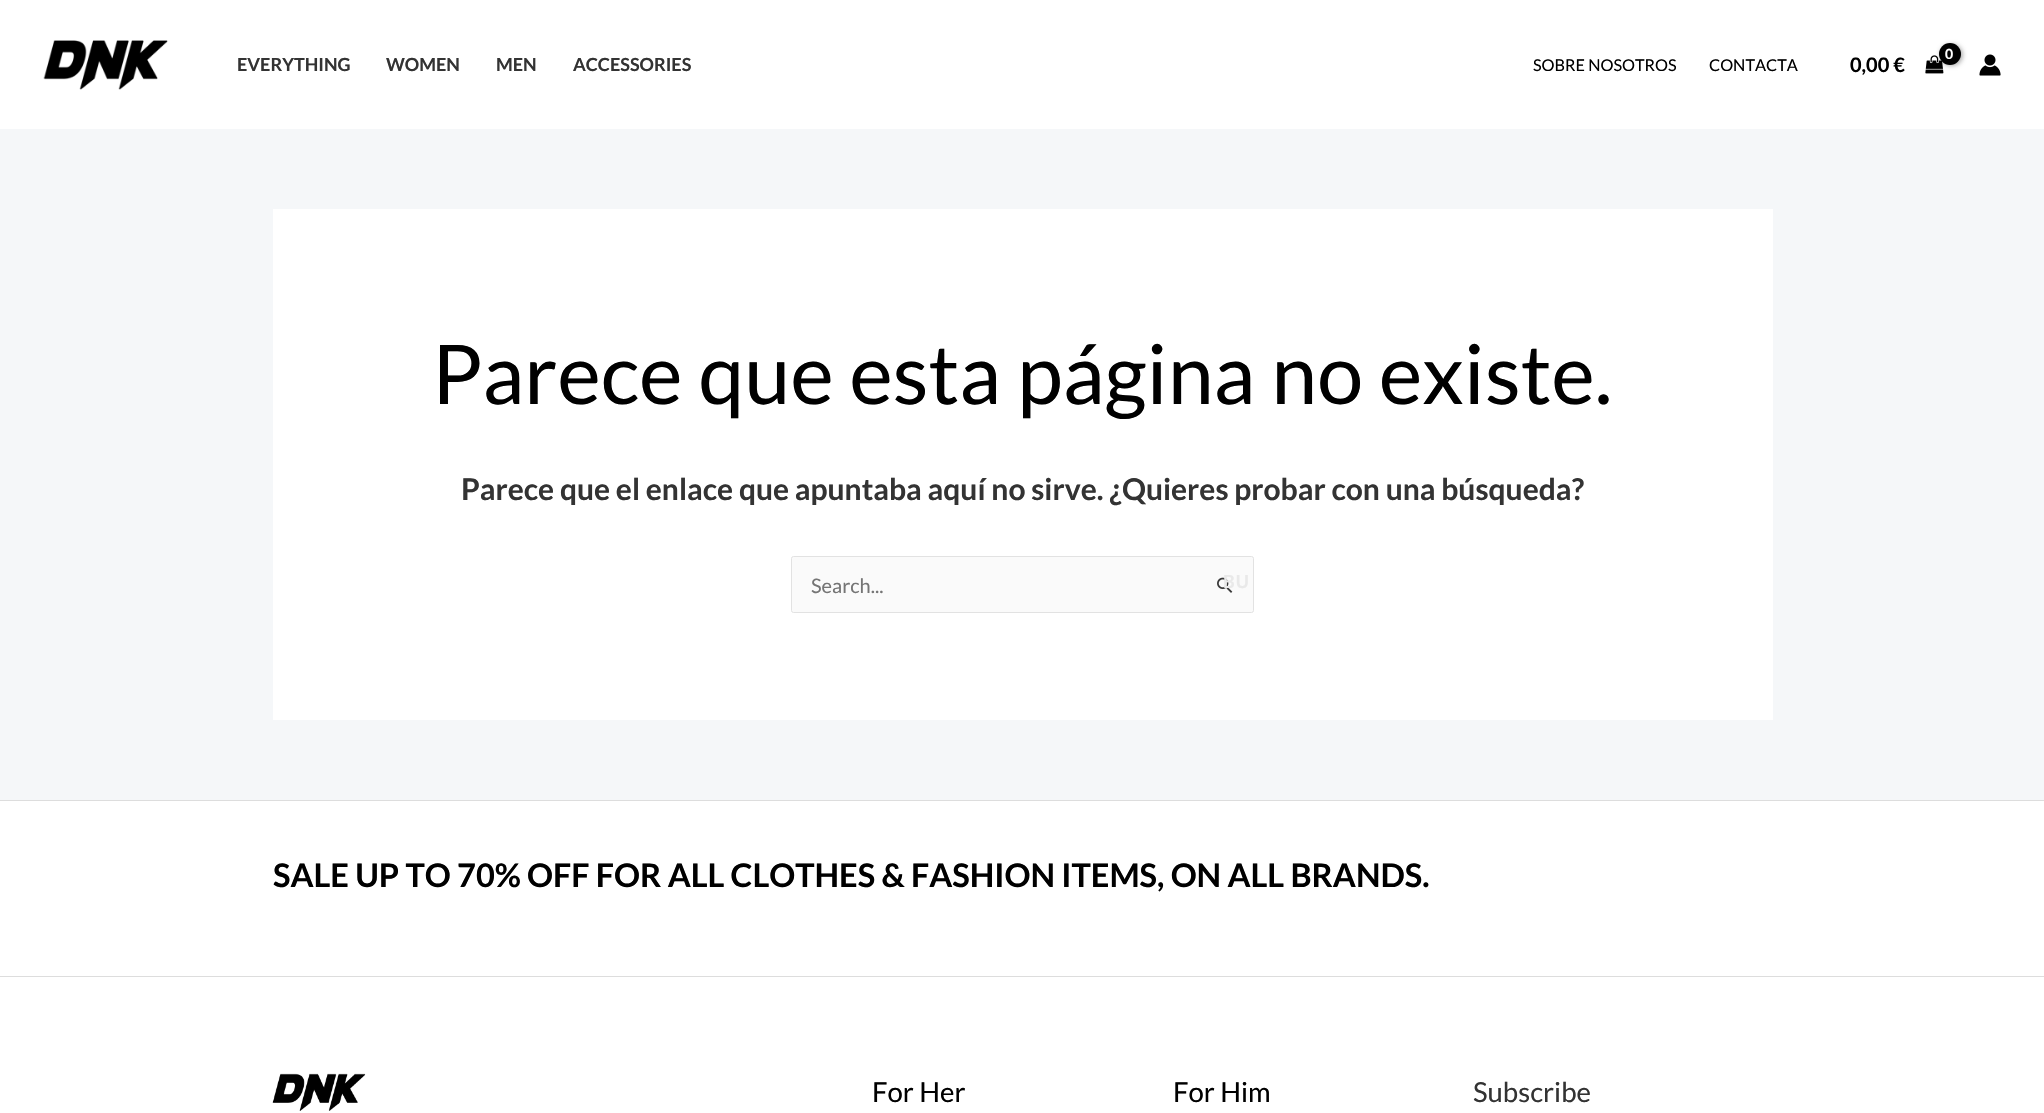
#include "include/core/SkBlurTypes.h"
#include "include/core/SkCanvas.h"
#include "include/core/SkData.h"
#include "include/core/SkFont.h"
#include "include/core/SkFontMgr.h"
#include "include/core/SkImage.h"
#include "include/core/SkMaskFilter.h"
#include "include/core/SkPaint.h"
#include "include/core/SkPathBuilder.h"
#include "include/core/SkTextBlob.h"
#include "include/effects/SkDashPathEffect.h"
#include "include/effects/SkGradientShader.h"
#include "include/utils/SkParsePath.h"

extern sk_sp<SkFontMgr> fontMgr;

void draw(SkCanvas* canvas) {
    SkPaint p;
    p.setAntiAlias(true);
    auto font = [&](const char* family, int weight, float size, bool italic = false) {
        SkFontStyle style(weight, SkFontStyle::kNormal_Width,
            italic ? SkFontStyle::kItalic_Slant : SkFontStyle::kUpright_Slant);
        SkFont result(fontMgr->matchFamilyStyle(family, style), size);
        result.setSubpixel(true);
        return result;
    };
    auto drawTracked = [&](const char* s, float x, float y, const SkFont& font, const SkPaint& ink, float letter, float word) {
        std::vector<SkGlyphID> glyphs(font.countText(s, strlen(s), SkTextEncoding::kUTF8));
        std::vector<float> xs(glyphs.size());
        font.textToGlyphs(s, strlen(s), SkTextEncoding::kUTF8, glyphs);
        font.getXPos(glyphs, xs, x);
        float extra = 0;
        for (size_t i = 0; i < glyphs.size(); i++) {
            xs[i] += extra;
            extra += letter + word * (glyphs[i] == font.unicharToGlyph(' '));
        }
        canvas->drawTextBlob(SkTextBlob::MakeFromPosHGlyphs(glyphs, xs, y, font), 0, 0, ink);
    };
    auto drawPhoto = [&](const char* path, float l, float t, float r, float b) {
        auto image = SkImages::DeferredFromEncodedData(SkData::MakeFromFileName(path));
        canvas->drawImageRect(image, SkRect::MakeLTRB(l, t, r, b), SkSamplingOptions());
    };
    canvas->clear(0xFFF5F7F9);
    p.setColor(0xFFFFFFFF);
    canvas->drawRect(SkRect::MakeLTRB(0, 0, 2044, 129), p);
    drawPhoto("media/1.png", 43, 40, 168, 90);
    auto font1 = font("Lato", 700, 18);
    p.setColor(0xFF333333);
    {
        const struct { const char* s; float x, y; } items[] = {
            {"EVERYTHING", 237, 71},
            {"WOMEN", 386, 71},
            {"MEN", 496, 71},
            {"ACCESSORIES", 573, 71},
        };
        for (auto [s, x, y] : items) {
            canvas->drawString(s, x, y, font1, p);
        }
    }
    auto font2 = font("Lato", 400, 16.25f);
    p.setColor(0xFF000000);
    canvas->drawString("SOBRE NOSOTROS", 1533, 71, font2, p);
    canvas->drawString("CONTACTA", 1709, 71, font2, p);
    drawPhoto("media/2.png", 1925, 55, 1944, 74);
    p.setColor(0x4D000000);
    p.setMaskFilter(SkMaskFilter::MakeBlur(kNormal_SkBlurStyle, 2));
    canvas->drawRoundRect(SkRect::MakeLTRB(1940, 44, 1963, 66), 11, 11, p);
    p.setMaskFilter(nullptr);
    p.setColor(0xFF000000);
    canvas->drawCircle(1950, 54, 11, p);
    auto font3 = font("Lato", 700, 14);
    p.setColor(0xFFFFFFFF);
    drawTracked("0", 1945, 59, font3, p, -1, 0);
    auto font4 = font("Lato", 700, 20);
    p.setColor(0xFF000000);
    canvas->drawString("0,00 €", 1850, 72, font4, p);
    drawPhoto("media/3.png", 1979, 54, 2001, 76);
    p.setColor(0xFFFFFFFF);
    canvas->drawRect(SkRect::MakeLTRB(273, 209, 1773, 720), p);
    auto font5 = font("Lato", 400, 82.5f);
    p.setColor(0xFF000000);
    canvas->drawString("Parece que esta página no existe.", 432, 404, font5, p);
    auto font6 = font("Lato", 700, 30);
    p.setColor(0xFF333333);
    canvas->drawString("Parece que el enlace que apuntaba aquí no sirve. ¿Quieres probar con una búsqueda?", 461, 500, font6, p);
    p.setColor(0xFFFAFAFA);
    canvas->drawRoundRect(SkRect::MakeLTRB(791.5f, 556.5f, 1253.5f, 612.5f), 2, 2, p);
    p.setStyle(SkPaint::kStroke_Style);
    p.setStrokeWidth(1);
    p.setColor(0xFFE2E2E2);
    canvas->drawRoundRect(SkRect::MakeLTRB(791.5f, 556.5f, 1253.5f, 612.5f), 2, 2, p);
    auto font7 = font("Lato", 400, 20);
    p.setStyle(SkPaint::kFill_Style);
    p.setColor(0xFF757575);
    canvas->drawString("Search...", 811, 593, font7, p);
    drawPhoto("media/4.png", 1217, 577, 1233, 593);
    p.setColor(0xFFE9E9E9);
    drawTracked("BU", 1223, 588, font1, p, 1, 0);
    p.setColor(0xFFFFFFFF);
    canvas->drawRect(SkRect::MakeLTRB(0, 801, 2044, 1113), p);
    p.setColor(0xFFDDDDDD);
    canvas->drawRect(SkRect::MakeLTRB(0, 800, 2044, 801), p);
    auto font8 = font("Lato", 700, 32.5f);
    p.setColor(0xFF000000);
    canvas->drawString("SALE UP TO 70% OFF FOR ALL CLOTHES & FASHION ITEMS, ON ALL BRANDS.", 273, 887, font8, p);
    p.setColor(0xFFDDDDDD);
    canvas->drawRect(SkRect::MakeLTRB(0, 976, 2044, 977), p);
    drawPhoto("media/5.png", 272, 1073, 366, 1111);
    auto font9 = font("Lato", 400, 27.5f);
    p.setColor(0xFF000000);
    canvas->drawString("For Her", 872, 1102, font9, p);
    canvas->drawString("For Him", 1173, 1102, font9, p);
    p.setColor(0xFF333333);
    canvas->drawString("Subscribe", 1473, 1102, font9, p);
}
